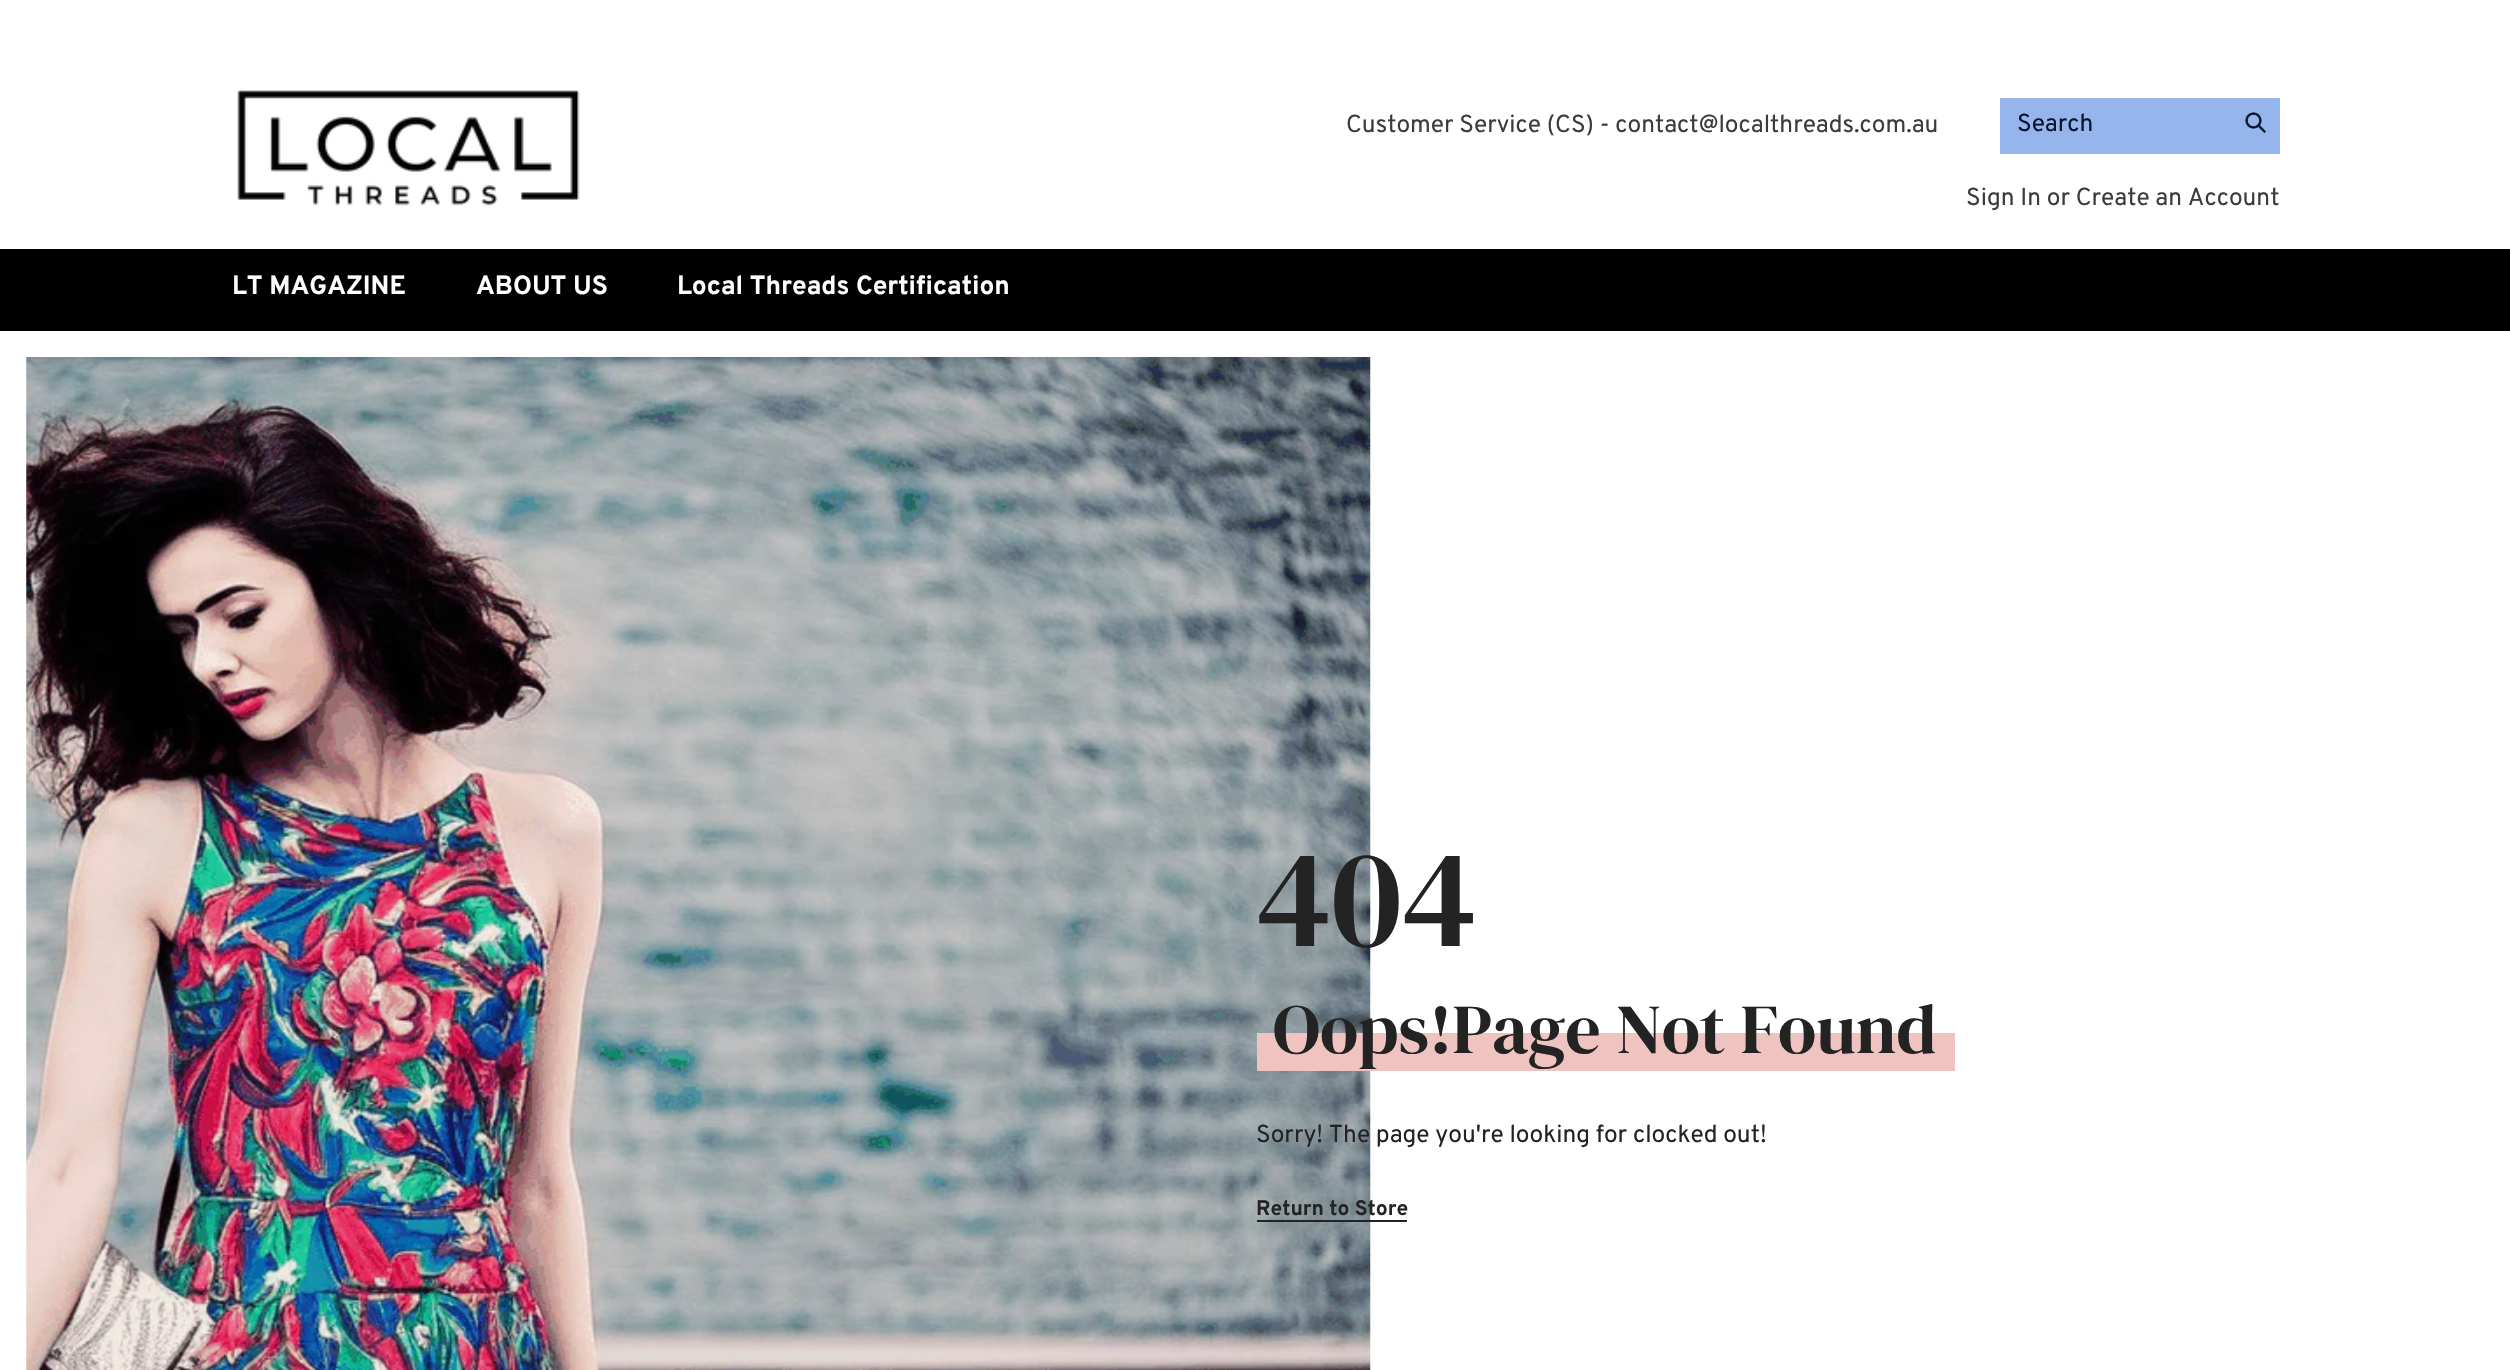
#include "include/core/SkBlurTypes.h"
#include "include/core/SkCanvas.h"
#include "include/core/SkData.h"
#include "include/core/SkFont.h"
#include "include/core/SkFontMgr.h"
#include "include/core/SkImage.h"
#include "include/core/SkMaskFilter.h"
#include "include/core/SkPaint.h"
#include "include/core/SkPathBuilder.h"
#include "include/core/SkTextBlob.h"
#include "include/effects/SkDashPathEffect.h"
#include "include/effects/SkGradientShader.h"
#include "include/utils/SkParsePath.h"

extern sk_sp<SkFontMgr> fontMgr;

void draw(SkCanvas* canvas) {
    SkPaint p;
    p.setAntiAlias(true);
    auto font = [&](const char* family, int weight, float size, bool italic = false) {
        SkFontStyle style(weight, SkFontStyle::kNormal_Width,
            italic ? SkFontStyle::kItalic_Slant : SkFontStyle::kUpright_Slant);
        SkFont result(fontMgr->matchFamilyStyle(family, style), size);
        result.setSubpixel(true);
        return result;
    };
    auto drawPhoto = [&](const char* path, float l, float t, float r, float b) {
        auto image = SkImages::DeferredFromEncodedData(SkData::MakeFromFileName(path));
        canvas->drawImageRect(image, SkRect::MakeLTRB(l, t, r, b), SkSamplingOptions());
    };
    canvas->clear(0xFFFFFFFF);
    drawPhoto("media/1.png", 237, 90, 580, 206);
    auto font1 = font("Overpass", 400, 24.5f);
    p.setColor(0xFF3C3C3C);
    canvas->drawString("Customer Service (CS) - contact@localthreads.com.au", 1346, 132, font1, p);
    p.setColor(0xFF96B5EC);
    canvas->drawRect(SkRect::MakeLTRB(2000, 98, 2280, 154), p);
    p.setColor(0xFF06142E);
    canvas->drawString("Search", 2017, 131, font1, p);
    drawPhoto("media/2.png", 2245, 112, 2266, 133);
    p.setColor(0xFF3C3C3C);
    canvas->drawString("Sign In or Create an Account", 1966, 205, font1, p);
    p.setColor(0xFF000000);
    canvas->drawRect(SkRect::MakeLTRB(0, 249, 2510, 331), p);
    auto font2 = font("Overpass", 700, 26.25f);
    p.setColor(0xFFFFFFFF);
    {
        const struct { const char* s; float x, y; } items[] = {
            {"LT MAGAZINE", 232, 294},
            {"ABOUT US", 476, 294},
            {"Local Threads Certification", 677, 294},
        };
        for (auto [s, x, y] : items) {
            canvas->drawString(s, x, y, font2, p);
        }
    }
    drawPhoto("media/3.png", 26, 357, 1371, 1370);
    auto font3 = font("DM Serif Display", 400, 140);
    p.setColor(0xFF232323);
    canvas->drawString("404", 1256, 946, font3, p);
    p.setColor(0xFFEFC3C0);
    canvas->drawRect(SkRect::MakeLTRB(1257, 1033, 1955, 1071), p);
    auto font4 = font("DM Serif Display", 400, 70);
    p.setColor(0xFF232323);
    canvas->drawString("Oops!Page Not Found", 1273, 1053, font4, p);
    canvas->drawString("Sorry! The page you're looking for clocked out!", 1256, 1142, font1, p);
    auto font5 = font("Overpass", 700, 21);
    canvas->drawString("Return to Store", 1256, 1215, font5, p);
    canvas->drawRect(SkRect::MakeLTRB(1257, 1220, 1407, 1222), p);
}
